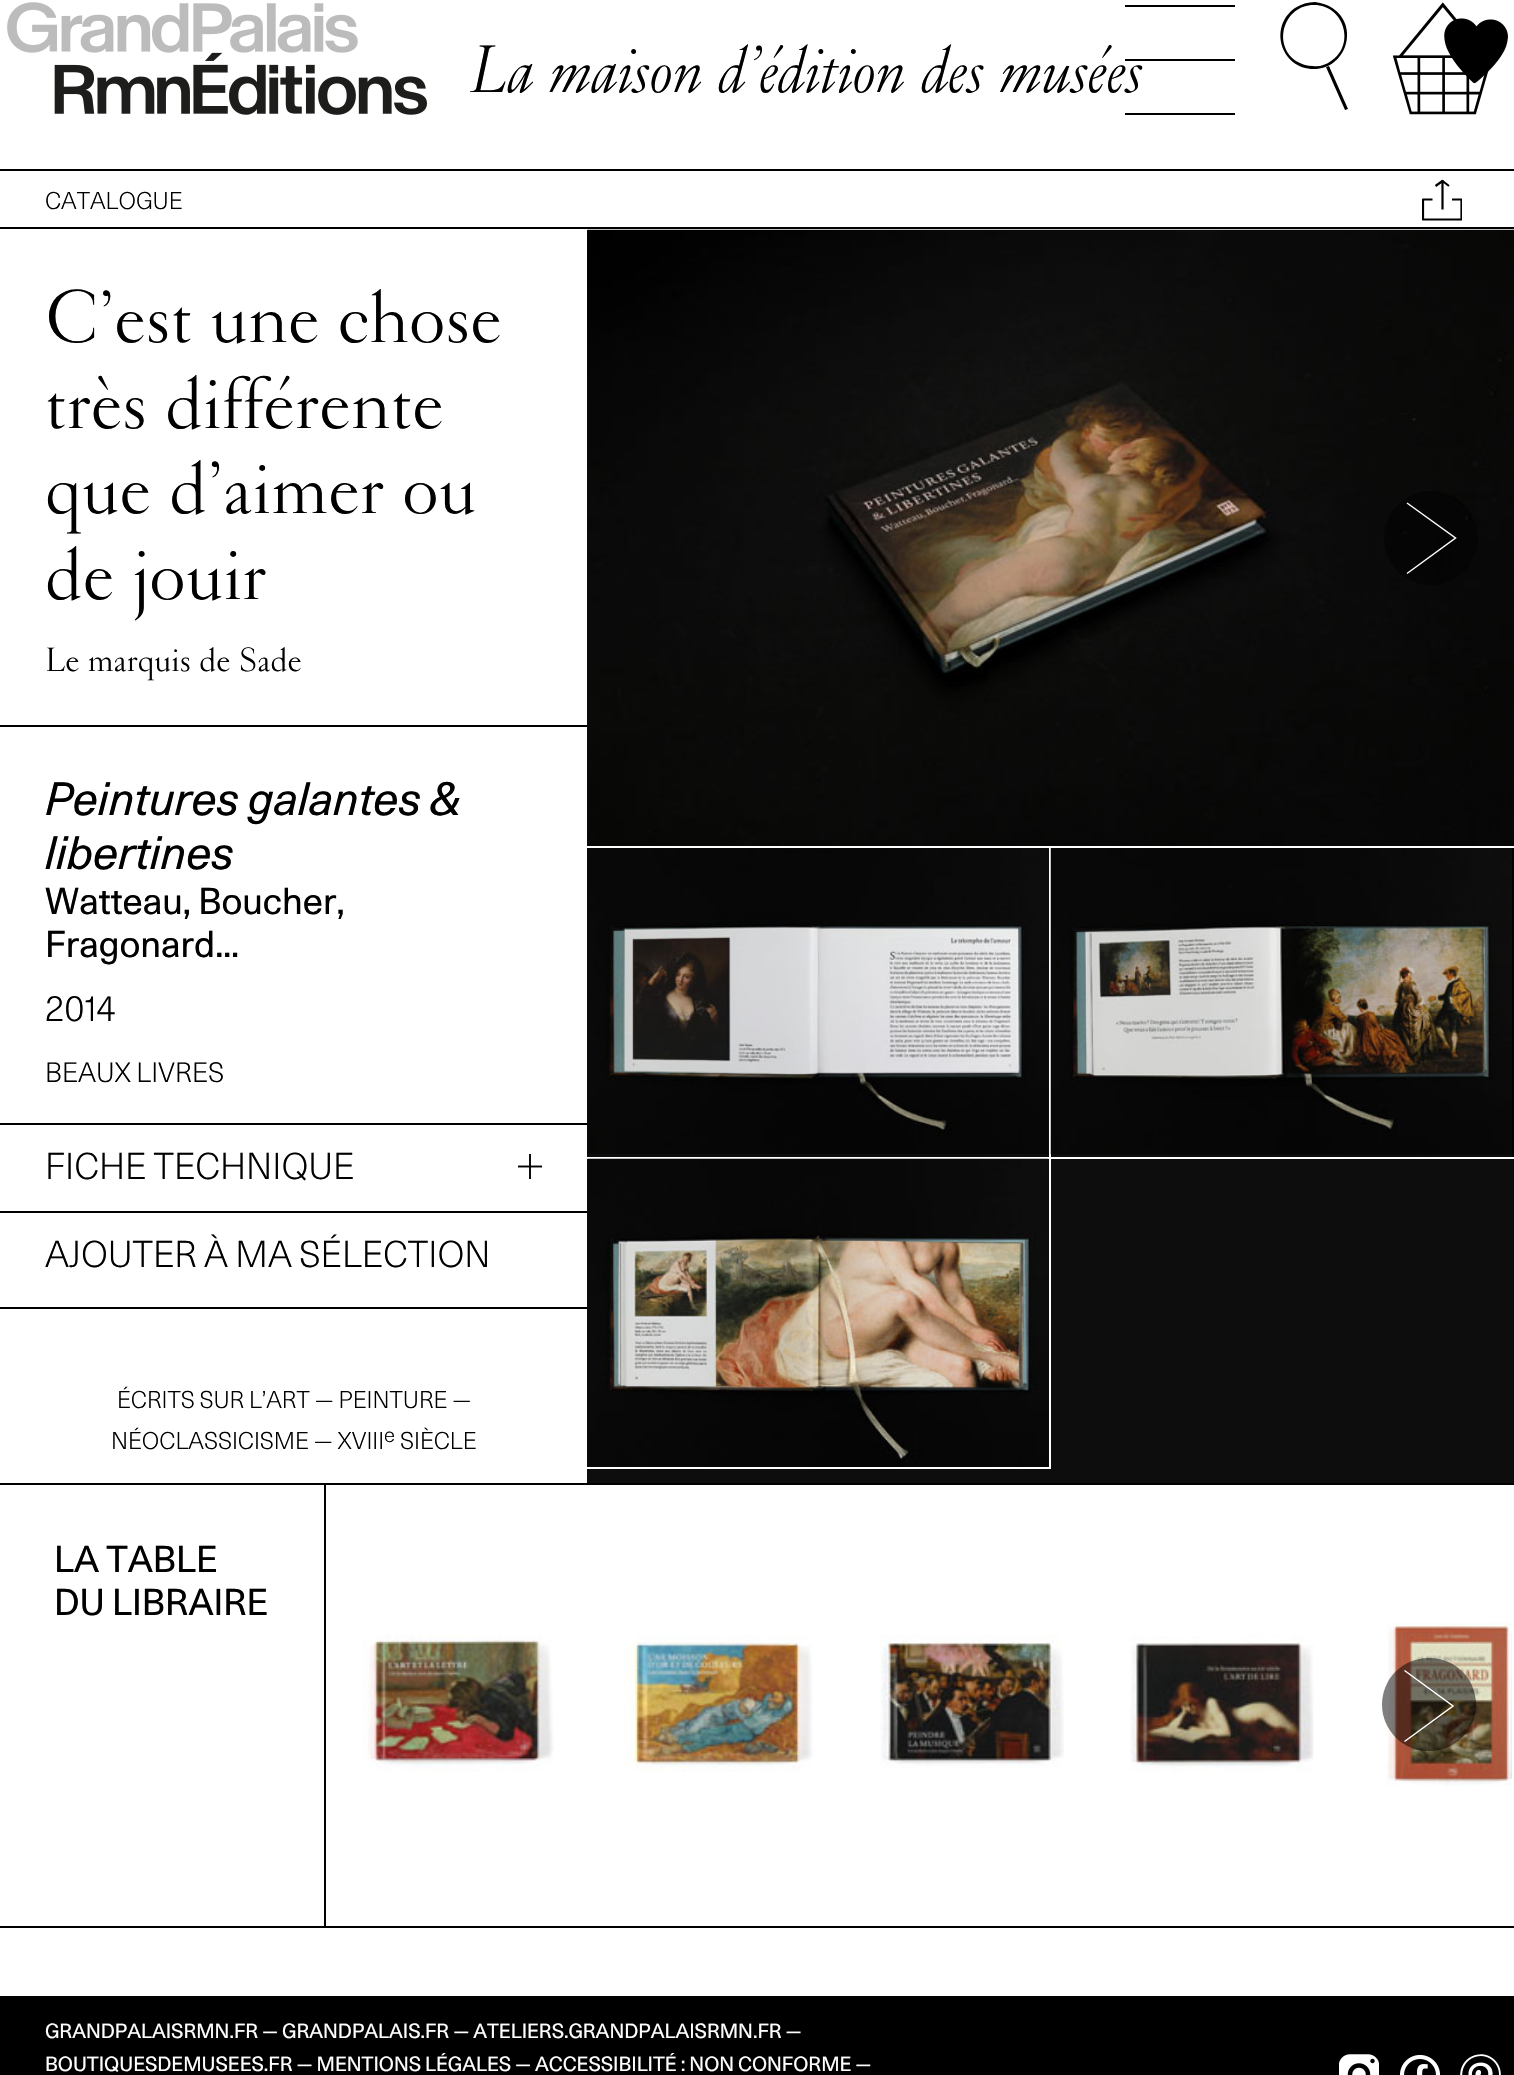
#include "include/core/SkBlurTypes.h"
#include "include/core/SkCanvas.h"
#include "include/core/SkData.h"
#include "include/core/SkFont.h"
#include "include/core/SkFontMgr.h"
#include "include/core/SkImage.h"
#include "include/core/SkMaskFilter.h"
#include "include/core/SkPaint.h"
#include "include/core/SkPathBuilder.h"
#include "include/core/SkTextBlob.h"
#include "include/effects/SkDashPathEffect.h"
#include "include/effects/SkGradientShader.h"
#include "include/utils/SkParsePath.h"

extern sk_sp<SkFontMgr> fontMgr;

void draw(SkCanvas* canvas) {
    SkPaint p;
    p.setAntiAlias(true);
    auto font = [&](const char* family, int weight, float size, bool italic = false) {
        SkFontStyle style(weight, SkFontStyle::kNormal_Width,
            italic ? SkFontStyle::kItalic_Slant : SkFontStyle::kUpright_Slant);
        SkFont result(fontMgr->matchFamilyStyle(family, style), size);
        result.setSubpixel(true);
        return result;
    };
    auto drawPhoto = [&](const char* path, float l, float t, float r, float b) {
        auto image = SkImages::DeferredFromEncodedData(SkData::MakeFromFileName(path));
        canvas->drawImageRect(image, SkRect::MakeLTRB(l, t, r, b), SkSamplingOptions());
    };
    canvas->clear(0xFFFFFFFF);
    p.setColor(0xFF000000);
    canvas->drawRect(SkRect::MakeLTRB(0, 169, 1514, 171), p);
    drawPhoto("media/1.png", 7, 2, 427, 115);
    auto font1 = font("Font", 400, 64.75f, true);
    canvas->drawString("La maison d’édition des musées", 469, 92, font1, p);
    {
        const struct { float l, t, r, b; SkColor color; } items[] = {
            {1125, 5, 1235, 7, 0xFF000000},
            {1125, 59, 1235, 61, 0xFF000000},
            {1125, 113, 1235, 115, 0xFF000000},
        };
        for (auto [l, t, r, b, color] : items) {
            p.setColor(color);
            canvas->drawRect(SkRect::MakeLTRB(l, t, r, b), p);
        }
    }
    canvas->drawPath(SkPathBuilder().moveTo(1314, 69).cubicTo(1281, 69, 1268, 27, 1295, 8).cubicTo(1301, 4, 1308, 2, 1315, 2).cubicTo(1322, 3, 1329, 5, 1335, 10).cubicTo(1359, 29, 1345, 69, 1314, 69).close().moveTo(1314, 5).cubicTo(1284, 5, 1272, 44, 1296, 61).cubicTo(1301, 64, 1307, 66, 1313, 66).cubicTo(1319, 67, 1326, 65, 1331, 61).cubicTo(1356, 45, 1344, 5, 1314, 5).close().detach(), p);
    canvas->drawPath(SkPathBuilder().moveTo(1326, 67).lineTo(1329, 66).lineTo(1348, 109).lineTo(1345, 110).close().detach(), p);
    drawPhoto("media/2.png", 1393, 2, 1508, 115);
    auto font2 = font("Font", 300, 23.4f);
    canvas->drawString("CATALOGUE", 45, 209, font2, p);
    canvas->save();
    canvas->clipRect(SkRect::MakeLTRB(1422, 180, 1462, 221));
    p.setStyle(SkPaint::kStroke_Style);
    p.setStrokeWidth(2.2f);
    p.setStrokeJoin(SkPaint::kRound_Join);
    canvas->drawPath(SkPathBuilder().moveTo(1432.5f, 199.5f).lineTo(1423, 199.5f).lineTo(1423, 219.5f).lineTo(1461.5f, 219.5f).lineTo(1461.5f, 199.5f).lineTo(1452, 199.5f).detach(), p);
    canvas->restore();
    canvas->drawPath(SkPathBuilder().moveTo(1435.5f, 186).lineTo(1442.5f, 181).lineTo(1449, 186).moveTo(1442.5f, 180).lineTo(1442.5f, 209.5f).detach(), p);
    p.setStyle(SkPaint::kFill_Style);
    canvas->drawRect(SkRect::MakeLTRB(0, 227, 1514, 229), p);
    canvas->drawRect(SkRect::MakeLTRB(0, 725, 587, 727), p);
    auto font3 = font("Font", 400, 72);
    {
        const struct { const char* s; float x, y; } items[] = {
            {"C’est une chose", 45, 342},
            {"très différente", 45, 428},
            {"que d’aimer ou", 45, 513},
            {"de jouir", 45, 599},
        };
        for (auto [s, x, y] : items) {
            canvas->drawString(s, x, y, font3, p);
        }
    }
    auto font4 = font("Font", 400, 32.5f);
    canvas->drawString("Le marquis de Sade", 45, 671, font4, p);
    auto font5 = font("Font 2", 400, 45, true);
    canvas->drawString("Peintures galantes &", 45, 815, font5, p);
    canvas->drawString("libertines", 45, 869, font5, p);
    auto font6 = font("Font 2", 400, 36);
    canvas->drawString("Watteau, Boucher,", 45, 914, font6, p);
    canvas->drawString("Fragonard…", 45, 957, font6, p);
    canvas->drawRect(SkRect::MakeLTRB(0, 1123, 587, 1125), p);
    auto font7 = font("Font", 300, 36);
    canvas->drawString("2014", 45, 1021, font7, p);
    auto font8 = font("Font", 300, 27);
    canvas->drawString("BEAUX LIVRES", 45, 1082, font8, p);
    canvas->drawRect(SkRect::MakeLTRB(0, 1211, 587, 1213), p);
    canvas->save();
    canvas->clipRect(SkRect::MakeLTRB(518, 1154, 542, 1179));
    p.setStyle(SkPaint::kStroke_Style);
    p.setStrokeWidth(1.9f);
    p.setStrokeJoin(SkPaint::kMiter_Join);
    canvas->drawPath(SkPathBuilder().moveTo(517.5f, 1166.5f).lineTo(542.5f, 1166.5f).detach(), p);
    canvas->restore();
    p.setStyle(SkPaint::kFill_Style);
    p.setColor(0xF2000000);
    canvas->drawRect(SkRect::MakeLTRB(529, 1154, 531, 1179), p);
    p.setColor(0xFF000000);
    canvas->drawString("FICHE TECHNIQUE", 45, 1179, font7, p);
    canvas->drawRect(SkRect::MakeLTRB(0, 1307, 587, 1309), p);
    canvas->drawString("AJOUTER À MA SÉLECTION", 45, 1267, font7, p);
    canvas->drawString("ÉCRITS SUR L’ART — PEINTURE —", 117, 1408, font2, p);
    canvas->drawString("NÉOCLASSICISME — XVIII", 111, 1449, font2, p);
    auto font9 = font("Font", 300, 20);
    canvas->drawString("e", 384, 1442, font9, p);
    canvas->drawString("SIÈCLE", 400, 1449, font2, p);
    p.setColor(0xFF0D0D0D);
    canvas->drawRect(SkRect::MakeLTRB(587, 230, 1514, 1483), p);
    p.setColor(0xFFFFFFFF);
    canvas->drawRect(SkRect::MakeLTRB(587, 846, 1514, 848), p);
    drawPhoto("media/3.png", 587, 229, 1514, 846);
    p.setColor(0x80000000);
    canvas->drawCircle(1431, 538, 47, p);
    p.setStyle(SkPaint::kStroke_Style);
    p.setStrokeWidth(1.5f);
    p.setColor(0xFFFFFFFF);
    canvas->drawPath(SkPathBuilder().moveTo(1407, 573.5f).lineTo(1455.5f, 538).lineTo(1407, 503).detach(), p);
    p.setStyle(SkPaint::kFill_Style);
    canvas->drawRect(SkRect::MakeLTRB(1049, 848, 1051, 1469), p);
    canvas->drawRect(SkRect::MakeLTRB(587, 1157, 1051, 1159), p);
    drawPhoto("media/4.png", 587, 848, 1048, 1154);
    p.setColor(0xFF000000);
    canvas->drawRect(SkRect::MakeLTRB(1512, 848, 1514, 1159), p);
    p.setColor(0xFFFFFFFF);
    canvas->drawRect(SkRect::MakeLTRB(1051, 1157, 1514, 1159), p);
    drawPhoto("media/5.png", 1050, 848, 1512, 1155);
    canvas->drawRect(SkRect::MakeLTRB(587, 1467, 1051, 1469), p);
    drawPhoto("media/6.png", 587, 1158, 1049, 1467);
    p.setColor(0xFF000000);
    canvas->drawRect(SkRect::MakeLTRB(0, 1483, 1514, 1485), p);
    canvas->drawRect(SkRect::MakeLTRB(0, 1926, 1514, 1928), p);
    canvas->drawString("LA TABLE", 54, 1572, font6, p);
    canvas->drawString("DU LIBRAIRE", 54, 1615, font6, p);
    canvas->drawRect(SkRect::MakeLTRB(324, 1485, 326, 1926), p);
    drawPhoto("media/7.png", 363, 1635, 554, 1772);
    drawPhoto("media/8.png", 624, 1635, 813, 1772);
    drawPhoto("media/9.png", 880, 1635, 1064, 1769);
    drawPhoto("media/10.png", 1130, 1635, 1314, 1772);
    drawPhoto("media/11.png", 1386, 1622, 1512, 1786);
    p.setColor(0x80000000);
    canvas->drawRoundRect(SkRect::MakeLTRB(1382, 1658, 1476, 1751), 46.5f, 46.5f, p);
    p.setStyle(SkPaint::kStroke_Style);
    p.setColor(0xFFFFFFFF);
    canvas->drawPath(SkPathBuilder().moveTo(1404.5f, 1741.5f).lineTo(1453, 1706).lineTo(1404.5f, 1670.5f).detach(), p);
    p.setStyle(SkPaint::kFill_Style);
    p.setColor(0xFF000000);
    canvas->drawRect(SkRect::MakeLTRB(0, 1996, 1514, 2075), p);
    auto font10 = font("Font 2", 400, 19.8f);
    p.setColor(0xFFFFFFFF);
    canvas->drawString("GRANDPALAISRMN.FR — GRANDPALAIS.FR — ATELIERS.GRANDPALAISRMN.FR —", 45, 2038, font10, p);
    canvas->drawString("BOUTIQUESDEMUSEES.FR — MENTIONS LÉGALES — ACCESSIBILITÉ : NON CONFORME —", 45, 2071, font10, p);
    drawPhoto("media/12.png", 1339, 2054, 1379, 2075);
    drawPhoto("media/13.png", 1400, 2054, 1440, 2075);
    drawPhoto("media/14.png", 1460, 2054, 1501, 2075);
}
